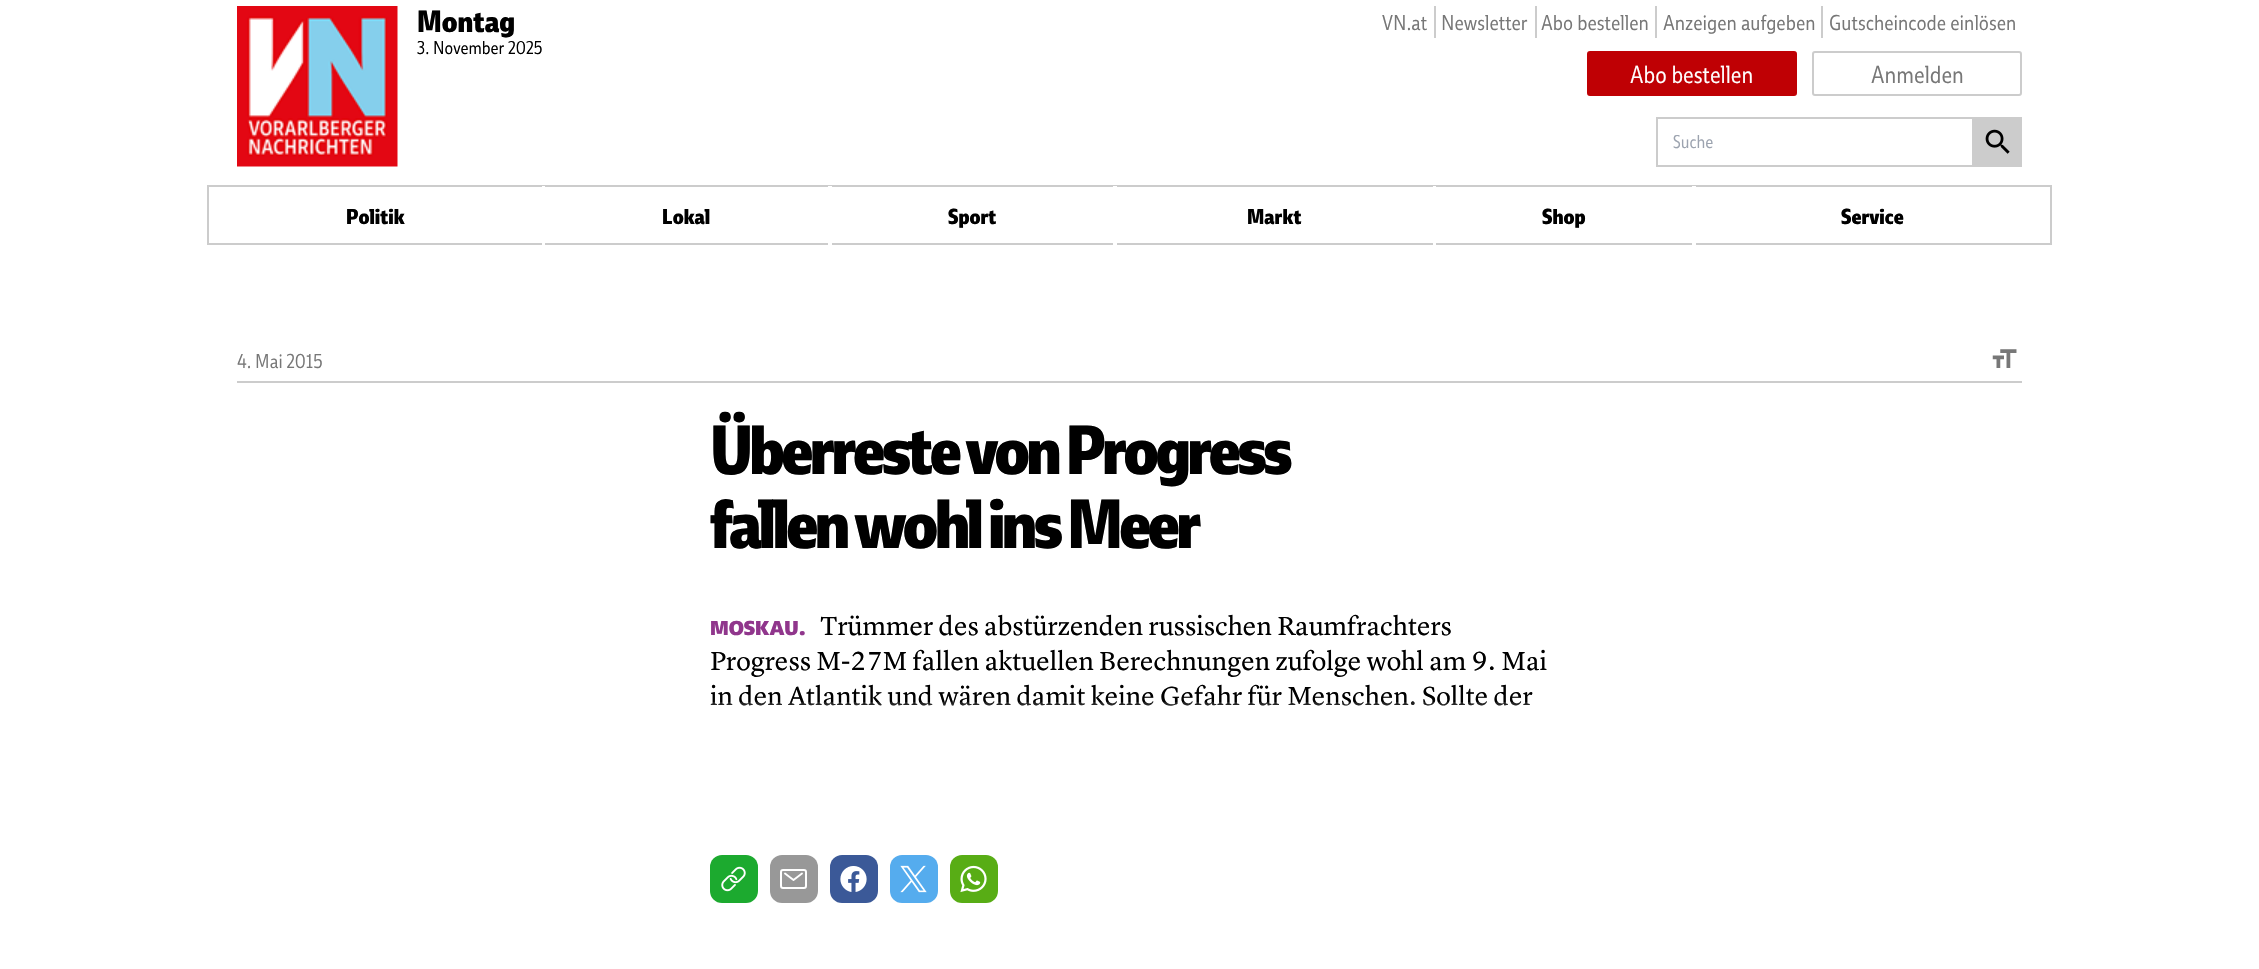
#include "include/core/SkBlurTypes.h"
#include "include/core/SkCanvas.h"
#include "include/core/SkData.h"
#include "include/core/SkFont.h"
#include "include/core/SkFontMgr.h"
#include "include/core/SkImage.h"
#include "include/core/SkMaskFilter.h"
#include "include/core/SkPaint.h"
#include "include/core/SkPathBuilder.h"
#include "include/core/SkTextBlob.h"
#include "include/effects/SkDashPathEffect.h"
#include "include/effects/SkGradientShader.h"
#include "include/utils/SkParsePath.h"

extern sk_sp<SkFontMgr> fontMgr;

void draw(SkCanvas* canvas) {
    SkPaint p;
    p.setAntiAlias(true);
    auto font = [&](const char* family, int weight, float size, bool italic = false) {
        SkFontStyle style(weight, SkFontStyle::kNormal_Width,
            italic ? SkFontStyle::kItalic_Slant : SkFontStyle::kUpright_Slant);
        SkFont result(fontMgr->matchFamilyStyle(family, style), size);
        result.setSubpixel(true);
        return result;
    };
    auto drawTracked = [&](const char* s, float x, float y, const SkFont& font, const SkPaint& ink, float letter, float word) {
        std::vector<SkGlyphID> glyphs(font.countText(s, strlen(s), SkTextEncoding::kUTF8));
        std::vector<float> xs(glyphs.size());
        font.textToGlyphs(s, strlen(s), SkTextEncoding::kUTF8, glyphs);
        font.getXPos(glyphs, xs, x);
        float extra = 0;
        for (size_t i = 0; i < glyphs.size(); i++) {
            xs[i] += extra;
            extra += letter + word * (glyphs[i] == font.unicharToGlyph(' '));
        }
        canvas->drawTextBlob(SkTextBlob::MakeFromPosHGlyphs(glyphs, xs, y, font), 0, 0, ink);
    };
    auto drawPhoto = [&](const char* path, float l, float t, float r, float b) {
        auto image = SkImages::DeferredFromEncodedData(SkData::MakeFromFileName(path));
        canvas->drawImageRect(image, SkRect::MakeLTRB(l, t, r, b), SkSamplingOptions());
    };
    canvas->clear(0xFFFFFFFF);
    drawPhoto("media/1.png", 237, 6, 398, 167);
    auto font1 = font("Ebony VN", 800, 30);
    p.setColor(0xFF000000);
    canvas->drawString("Montag", 417, 32, font1, p);
    auto font2 = font("Ebony VN", 300, 18);
    canvas->drawString("3. November 2025", 417, 54, font2, p);
    p.setColor(0xFFCCCCCC);
    canvas->drawRect(SkRect::MakeLTRB(1434, 6, 1436, 38), p);
    auto font3 = font("Ebony VN", 300, 21);
    p.setColor(0xFF777777);
    canvas->drawString("VN.at", 1382, 30, font3, p);
    p.setColor(0xFFCCCCCC);
    canvas->drawRect(SkRect::MakeLTRB(1535, 6, 1537, 38), p);
    p.setColor(0xFF777777);
    canvas->drawString("Newsletter", 1441, 30, font3, p);
    p.setColor(0xFFCCCCCC);
    canvas->drawRect(SkRect::MakeLTRB(1655, 6, 1657, 38), p);
    p.setColor(0xFF777777);
    canvas->drawString("Abo bestellen", 1541, 30, font3, p);
    p.setColor(0xFFCCCCCC);
    canvas->drawRect(SkRect::MakeLTRB(1821, 6, 1823, 38), p);
    p.setColor(0xFF777777);
    canvas->drawString("Anzeigen aufgeben", 1663, 30, font3, p);
    canvas->drawString("Gutscheincode einlösen", 1829, 30, font3, p);
    p.setColor(0xFFBF0004);
    canvas->drawRoundRect(SkRect::MakeLTRB(1588, 52, 1796, 95), 2, 2, p);
    p.setStyle(SkPaint::kStroke_Style);
    p.setStrokeWidth(2);
    canvas->drawRoundRect(SkRect::MakeLTRB(1588, 52, 1796, 95), 2, 2, p);
    auto font4 = font("Ebony VN", 300, 24);
    p.setStyle(SkPaint::kFill_Style);
    p.setColor(0xFFFFFFFF);
    canvas->drawString("Abo bestellen", 1630, 83, font4, p);
    p.setStyle(SkPaint::kStroke_Style);
    p.setColor(0xFFCCCCCC);
    canvas->drawRoundRect(SkRect::MakeLTRB(1813, 52, 2021, 95), 2, 2, p);
    p.setStyle(SkPaint::kFill_Style);
    p.setColor(0xFF777777);
    canvas->drawString("Anmelden", 1871, 83, font4, p);
    p.setStyle(SkPaint::kStroke_Style);
    p.setColor(0xFFCCCCCC);
    canvas->drawRect(SkRect::MakeLTRB(1657, 118, 1973, 166), p);
    p.setStyle(SkPaint::kFill_Style);
    p.setColor(0xFF9CA3AF);
    canvas->drawString("Suche", 1673, 148, font2, p);
    p.setColor(0xFFCCCCCC);
    canvas->drawRect(SkRect::MakeLTRB(1974, 117, 2022, 167), p);
    drawPhoto("media/2.png", 1985, 129, 2010, 154);
    p.setStyle(SkPaint::kStroke_Style);
    canvas->drawRect(SkRect::MakeLTRB(208, 186, 2051, 244), p);
    p.setStyle(SkPaint::kFill_Style);
    p.setColor(0xFFFFFFFF);
    canvas->drawRect(SkRect::MakeLTRB(542, 186, 545, 246), p);
    auto font5 = font("Ebony VN", 800, 21);
    p.setColor(0xFF000000);
    canvas->drawString("Politik", 346, 224, font5, p);
    p.setColor(0xFFFFFFFF);
    canvas->drawRect(SkRect::MakeLTRB(828, 186, 832, 246), p);
    p.setColor(0xFF000000);
    canvas->drawString("Lokal", 662, 224, font5, p);
    p.setColor(0xFFFFFFFF);
    canvas->drawRect(SkRect::MakeLTRB(1113, 186, 1117, 246), p);
    p.setColor(0xFF000000);
    canvas->drawString("Sport", 948, 224, font5, p);
    p.setColor(0xFFFFFFFF);
    canvas->drawRect(SkRect::MakeLTRB(1433, 186, 1436, 246), p);
    p.setColor(0xFF000000);
    canvas->drawString("Markt", 1247, 224, font5, p);
    p.setColor(0xFFFFFFFF);
    canvas->drawRect(SkRect::MakeLTRB(1692, 186, 1696, 246), p);
    p.setColor(0xFF000000);
    canvas->drawString("Shop", 1542, 224, font5, p);
    canvas->drawString("Service", 1841, 224, font5, p);
    p.setColor(0xFFCCCCCC);
    canvas->drawRect(SkRect::MakeLTRB(237, 381, 2022, 383), p);
    auto font6 = font("Ebony VN", 300, 19.5f);
    p.setColor(0xFF777777);
    canvas->drawString("4. Mai 2015", 237, 368, font6, p);
    drawPhoto("media/3.png", 1992, 349, 2017, 368);
    auto font7 = font("Ebony VN", 800, 67.5f);
    p.setColor(0xFF000000);
    drawTracked("Überreste von Progress", 710, 474, font7, p, -3.6f, 0);
    drawTracked("fallen wohl ins Meer", 710, 548, font7, p, -3.6f, 0);
    auto font8 = font("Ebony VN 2", 800, 19.5f);
    p.setColor(0xFF90368C);
    canvas->drawString("MOSKAU.", 710, 635, font8, p);
    auto font9 = font("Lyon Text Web", 400, 27);
    p.setColor(0xFF000000);
    {
        const struct { const char* s; float x, y; } items[] = {
            {"Trümmer des abstürzenden russischen Raumfrachters", 820, 635},
            {"Progress M-27M fallen aktuellen Berechnungen zufolge wohl am 9. Mai", 710, 670},
            {"in den Atlantik und wären damit keine Gefahr für Menschen. Sollte der", 710, 705},
        };
        for (auto [s, x, y] : items) {
            canvas->drawString(s, x, y, font9, p);
        }
    }
    {
        const SkColor colors[] = {0xFFFFFFFF, 0x1AFFFFFF};
        const float stops[] = {0.6f, 1};
        const SkPoint ends[] = {{1130, 810}, {1130, 702}};
        p.setShader(SkGradientShader::MakeLinear(ends, colors, stops, 2, SkTileMode::kClamp));
        p.setAlpha(255);
    }
    canvas->drawRect(SkRect::MakeLTRB(710, 702, 1530, 706), p);
    p.setShader(nullptr);
    p.setColor(0xFF1CAA2F);
    canvas->drawRoundRect(SkRect::MakeLTRB(710, 855, 758, 903), 12, 12, p);
    drawPhoto("media/4.png", 721, 866, 746, 892);
    p.setColor(0xFF989898);
    canvas->drawRoundRect(SkRect::MakeLTRB(770, 855, 818, 903), 12, 12, p);
    p.setStyle(SkPaint::kStroke_Style);
    p.setColor(0xFFFFFFFF);
    canvas->drawRoundRect(SkRect::MakeLTRB(781, 870, 806, 888), 2, 2, p);
    p.setStrokeWidth(1.9f);
    p.setStrokeCap(SkPaint::kRound_Cap);
    p.setStrokeJoin(SkPaint::kRound_Join);
    canvas->drawPath(SkPathBuilder().moveTo(785, 873.5f).lineTo(793.5f, 880).lineTo(802, 873.5f).detach(), p);
    p.setStyle(SkPaint::kFill_Style);
    p.setColor(0xFF3B5998);
    canvas->drawRoundRect(SkRect::MakeLTRB(830, 855, 878, 903), 12, 12, p);
    drawPhoto("media/5.png", 840, 866, 867, 892);
    p.setColor(0xFF55ACEE);
    canvas->drawRoundRect(SkRect::MakeLTRB(890, 855, 938, 903), 12, 12, p);
    drawPhoto("media/6.png", 900, 865, 927, 893);
    p.setColor(0xFF58AD15);
    canvas->drawRoundRect(SkRect::MakeLTRB(950, 855, 998, 903), 12, 12, p);
    drawPhoto("media/7.png", 960, 865, 987, 893);
}
